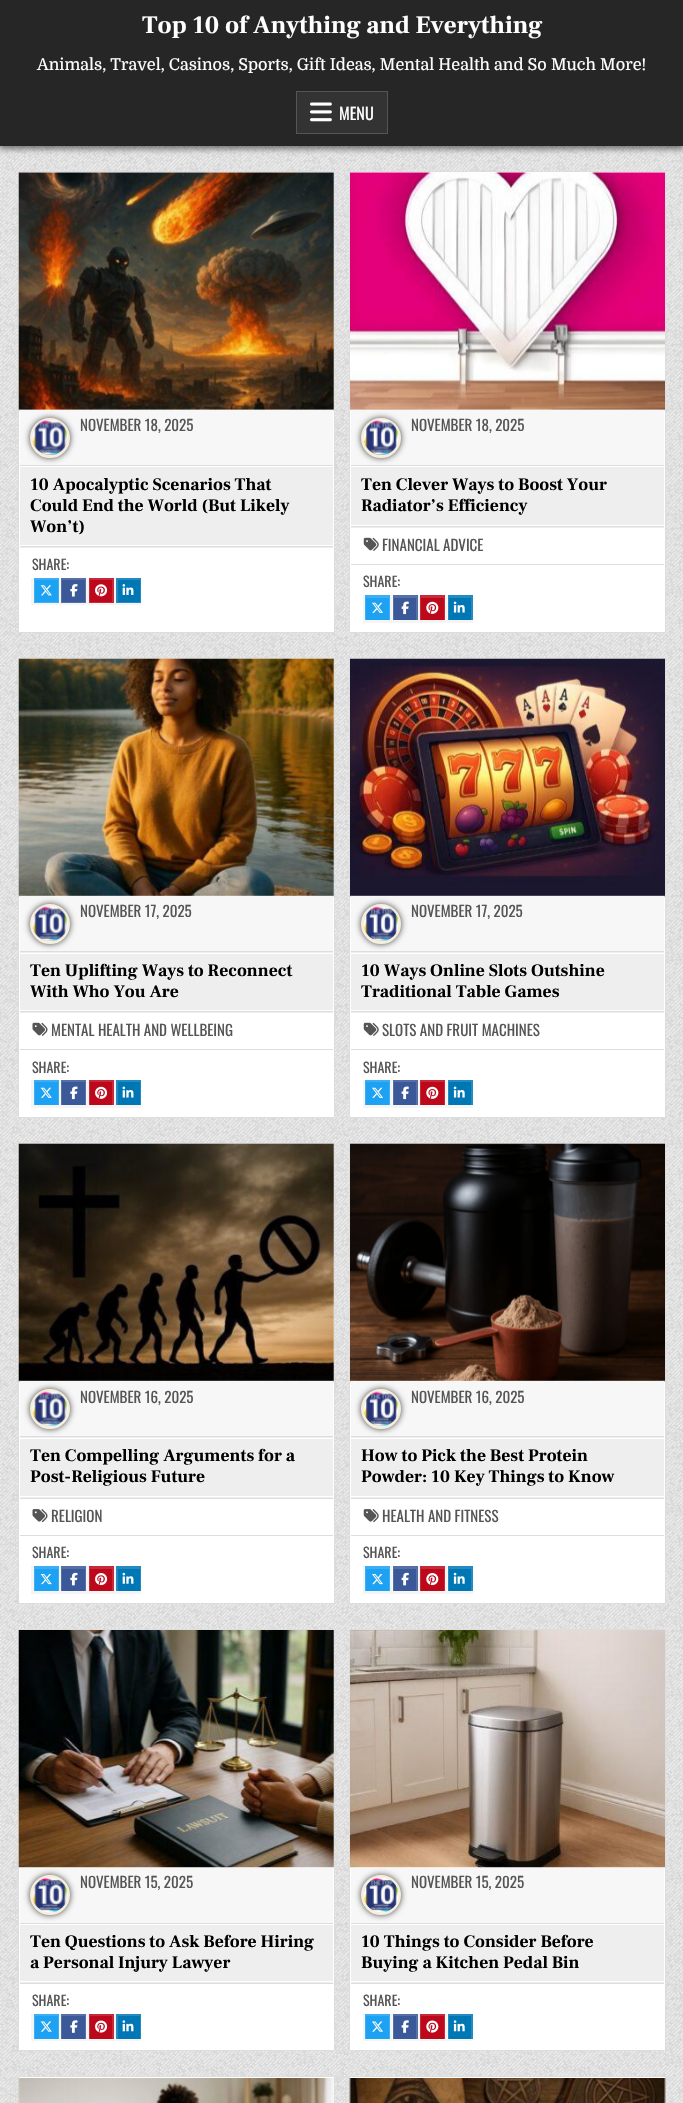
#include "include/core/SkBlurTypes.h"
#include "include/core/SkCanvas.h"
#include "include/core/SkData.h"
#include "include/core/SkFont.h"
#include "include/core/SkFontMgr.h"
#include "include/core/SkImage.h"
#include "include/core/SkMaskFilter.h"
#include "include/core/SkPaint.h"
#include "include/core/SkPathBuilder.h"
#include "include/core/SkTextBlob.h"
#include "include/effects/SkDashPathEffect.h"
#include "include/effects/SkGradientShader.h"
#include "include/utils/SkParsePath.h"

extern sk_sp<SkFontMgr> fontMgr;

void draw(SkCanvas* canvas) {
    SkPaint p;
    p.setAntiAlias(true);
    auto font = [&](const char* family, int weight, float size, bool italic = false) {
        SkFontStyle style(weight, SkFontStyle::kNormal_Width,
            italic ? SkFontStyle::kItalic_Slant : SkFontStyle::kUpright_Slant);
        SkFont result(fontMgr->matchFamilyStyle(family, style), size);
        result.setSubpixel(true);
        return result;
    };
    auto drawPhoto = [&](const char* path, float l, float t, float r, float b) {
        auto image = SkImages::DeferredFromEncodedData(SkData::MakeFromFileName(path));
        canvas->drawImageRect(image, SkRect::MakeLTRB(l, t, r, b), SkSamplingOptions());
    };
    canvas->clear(0xFFFFFFFF);
    drawPhoto("media/1.png", 0, 146, 683, 2103);
    p.setColor(0x80000000);
    p.setMaskFilter(SkMaskFilter::MakeBlur(kNormal_SkBlurStyle, 3));
    canvas->drawRect(SkRect::MakeLTRB(0, 3, 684, 149), p);
    p.setMaskFilter(nullptr);
    p.setColor(0xFF262626);
    canvas->drawRect(SkRect::MakeLTRB(0, 0, 683, 146), p);
    auto font1 = font("Frank Ruhl Libre", 700, 25);
    p.setColor(0xFFFFFFFF);
    canvas->drawString("Top 10 of Anything and Everything", 142, 33, font1, p);
    auto font2 = font("Domine", 400, 16.25f);
    canvas->drawString("Animals, Travel, Casinos, Sports, Gift Ideas, Mental Health and So Much More!", 37, 70, font2, p);
    p.setColor(0xFF333333);
    canvas->drawRect(SkRect::MakeLTRB(296.5f, 91.5f, 387.5f, 133.5f), p);
    p.setStyle(SkPaint::kStroke_Style);
    p.setStrokeWidth(1);
    p.setColor(0xFF555555);
    canvas->drawRect(SkRect::MakeLTRB(296.5f, 91.5f, 387.5f, 133.5f), p);
    drawPhoto("media/2.png", 310, 102, 332, 122);
    auto font3 = font("Oswald", 400, 16.25f);
    p.setStyle(SkPaint::kFill_Style);
    p.setColor(0xFFFFFFFF);
    canvas->drawString("MENU", 339, 120, font3, p);
    canvas->drawRect(SkRect::MakeLTRB(18.5f, 171.5f, 334.5f, 632.5f), p);
    p.setStyle(SkPaint::kStroke_Style);
    p.setColor(0xFFDDDDDD);
    canvas->drawRect(SkRect::MakeLTRB(18.5f, 171.5f, 334.5f, 632.5f), p);
    drawPhoto("media/3.png", 18, 172, 334, 411);
    p.setStyle(SkPaint::kFill_Style);
    {
        const struct { float l, t, r, b; SkColor color; } items[] = {
            {20, 410, 333, 465, 0xFFF7F7F7},
            {20, 467, 333, 548, 0xFFEEEEEE},
            {20, 465, 333, 466, 0xFFDDDDDD},
        };
        for (auto [l, t, r, b, color] : items) {
            p.setColor(color);
            canvas->drawRect(SkRect::MakeLTRB(l, t, r, b), p);
        }
    }
    p.setColor(0xFF444444);
    p.setMaskFilter(SkMaskFilter::MakeBlur(kNormal_SkBlurStyle, 3));
    canvas->drawRoundRect(SkRect::MakeLTRB(30, 418, 70, 458), 20, 20, p);
    p.setMaskFilter(nullptr);
    p.setStyle(SkPaint::kStroke_Style);
    p.setStrokeWidth(3);
    p.setColor(0xFFF7EFDC);
    canvas->drawCircle(50, 438, 18.5f, p);
    drawPhoto("media/4.png", 32, 420, 68, 455);
    auto font4 = font("Oswald", 400, 15);
    p.setStyle(SkPaint::kFill_Style);
    p.setColor(0xFF555555);
    canvas->drawString("NOVEMBER 18, 2025", 80, 431, font4, p);
    p.setColor(0xFFDDDDDD);
    canvas->drawRect(SkRect::MakeLTRB(20, 546, 333, 547), p);
    p.setColor(0xFFFFFFFF);
    canvas->drawRect(SkRect::MakeLTRB(20, 545, 333, 546), p);
    auto font5 = font("Frank Ruhl Libre", 700, 17.5f);
    p.setColor(0xFF000000);
    {
        const struct { const char* s; float x, y; } items[] = {
            {"10 Apocalyptic Scenarios That", 30, 490},
            {"Could End the World (But Likely", 30, 511},
            {"Won’t)", 30, 532},
        };
        for (auto [s, x, y] : items) {
            canvas->drawString(s, x, y, font5, p);
        }
    }
    auto font6 = font("Oswald", 400, 14);
    p.setColor(0xFF555555);
    canvas->drawString("SHARE:", 32, 570, font6, p);
    p.setColor(0xFFF5F5F5);
    canvas->drawPath(SkPathBuilder().moveTo(31, 578).lineTo(31, 605).lineTo(59, 605).lineTo(59, 578).lineTo(59, 602.5f).lineTo(34, 602.5f).lineTo(34, 578).close().detach(), p);
    p.setColor(0xFF1DA1F2);
    canvas->drawRect(SkRect::MakeLTRB(35, 580, 58, 602), p);
    canvas->save();
    canvas->clipRect(SkRect::MakeLTRB(34, 578, 59, 603));
    p.setColor(0xFF3DAEF4);
    canvas->drawPath(SkPathBuilder(SkPathFillType::kEvenOdd).moveTo(-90, 454).lineTo(182, 454).lineTo(182, 726).lineTo(-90, 726).close().moveTo(35, 580).lineTo(58, 580).lineTo(58, 602).lineTo(35, 602).close().detach(), p);
    canvas->restore();
    drawPhoto("media/5.png", 40, 585, 52, 596);
    p.setColor(0xFFF5F5F5);
    canvas->drawPath(SkPathBuilder().moveTo(59, 578).lineTo(59, 605).lineTo(86, 605).lineTo(86, 602.5f).lineTo(61, 602.5f).lineTo(61, 578).close().detach(), p);
    p.setColor(0xFF3B5998);
    canvas->drawRect(SkRect::MakeLTRB(62, 580, 85, 602), p);
    canvas->save();
    canvas->clipRect(SkRect::MakeLTRB(61, 578, 86, 603));
    p.setColor(0xFF5670A6);
    canvas->drawPath(SkPathBuilder(SkPathFillType::kEvenOdd).moveTo(-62, 454).lineTo(210, 454).lineTo(210, 726).lineTo(-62, 726).close().moveTo(62, 580).lineTo(85, 580).lineTo(85, 602).lineTo(62, 602).close().detach(), p);
    canvas->restore();
    drawPhoto("media/6.png", 70, 584, 78, 597);
    p.setColor(0xFFF5F5F5);
    canvas->drawPath(SkPathBuilder().moveTo(86, 578).lineTo(86, 605).lineTo(114, 605).lineTo(114, 578).lineTo(114, 602.5f).lineTo(89, 602.5f).lineTo(89, 578).close().detach(), p);
    p.setColor(0xFFBD081C);
    canvas->drawRect(SkRect::MakeLTRB(90, 580, 112, 602), p);
    canvas->save();
    canvas->clipRect(SkRect::MakeLTRB(89, 578, 114, 603));
    p.setColor(0xFFC62B3C);
    canvas->drawPath(SkPathBuilder(SkPathFillType::kEvenOdd).moveTo(-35, 454).lineTo(238, 454).lineTo(238, 726).lineTo(-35, 726).close().moveTo(90, 580).lineTo(112, 580).lineTo(112, 602).lineTo(90, 602).close().detach(), p);
    canvas->restore();
    drawPhoto("media/7.png", 95, 584, 108, 597);
    p.setColor(0xFFF5F5F5);
    canvas->drawPath(SkPathBuilder().moveTo(114, 578).lineTo(114, 605).lineTo(141, 605).lineTo(141, 602.5f).lineTo(116, 602.5f).lineTo(116, 578).close().detach(), p);
    p.setColor(0xFF0077B5);
    canvas->drawRect(SkRect::MakeLTRB(118, 580, 140, 602), p);
    canvas->save();
    canvas->clipRect(SkRect::MakeLTRB(116, 578, 141, 603));
    p.setColor(0xFF248ABF);
    canvas->drawPath(SkPathBuilder(SkPathFillType::kEvenOdd).moveTo(-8, 454).lineTo(265, 454).lineTo(265, 726).lineTo(-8, 726).close().moveTo(118, 580).lineTo(140, 580).lineTo(140, 602).lineTo(118, 602).close().detach(), p);
    canvas->restore();
    drawPhoto("media/8.png", 122, 584, 134, 595);
    p.setColor(0xFFFFFFFF);
    canvas->drawRect(SkRect::MakeLTRB(349.5f, 171.5f, 665.5f, 632.5f), p);
    p.setStyle(SkPaint::kStroke_Style);
    p.setStrokeWidth(1);
    p.setColor(0xFFDDDDDD);
    canvas->drawRect(SkRect::MakeLTRB(349.5f, 171.5f, 665.5f, 632.5f), p);
    drawPhoto("media/9.png", 350, 172, 665, 411);
    p.setStyle(SkPaint::kFill_Style);
    {
        const struct { float l, t, r, b; SkColor color; } items[] = {
            {351, 410, 664, 465, 0xFFF7F7F7},
            {351, 467, 664, 528, 0xFFEEEEEE},
            {351, 465, 664, 466, 0xFFDDDDDD},
        };
        for (auto [l, t, r, b, color] : items) {
            p.setColor(color);
            canvas->drawRect(SkRect::MakeLTRB(l, t, r, b), p);
        }
    }
    p.setColor(0xFF444444);
    p.setMaskFilter(SkMaskFilter::MakeBlur(kNormal_SkBlurStyle, 3));
    canvas->drawRoundRect(SkRect::MakeLTRB(361, 418, 401, 458), 20, 20, p);
    p.setMaskFilter(nullptr);
    p.setStyle(SkPaint::kStroke_Style);
    p.setStrokeWidth(3);
    p.setColor(0xFFF7EFDC);
    canvas->drawCircle(381, 438, 18.5f, p);
    drawPhoto("media/10.png", 364, 419, 399, 456);
    p.setStyle(SkPaint::kFill_Style);
    p.setColor(0xFF555555);
    canvas->drawString("NOVEMBER 18, 2025", 411, 431, font4, p);
    p.setColor(0xFFDDDDDD);
    canvas->drawRect(SkRect::MakeLTRB(351, 526, 664, 527), p);
    p.setColor(0xFFFFFFFF);
    canvas->drawRect(SkRect::MakeLTRB(351, 525, 664, 526), p);
    p.setColor(0xFF000000);
    canvas->drawString("Ten Clever Ways to Boost Your", 361, 490, font5, p);
    canvas->drawString("Radiator’s Efficiency", 361, 511, font5, p);
    p.setColor(0xFFDDDDDD);
    canvas->drawRect(SkRect::MakeLTRB(351, 564, 664, 565), p);
    drawPhoto("media/11.png", 363, 537, 379, 551);
    p.setColor(0xFF555555);
    canvas->drawString("FINANCIAL ADVICE", 382, 551, font4, p);
    canvas->drawString("SHARE:", 363, 587, font6, p);
    p.setColor(0xFFF5F5F5);
    canvas->drawPath(SkPathBuilder().moveTo(363, 595).lineTo(363, 623).lineTo(390, 623).lineTo(390, 620).lineTo(365, 620).lineTo(365, 595).close().detach(), p);
    p.setColor(0xFF1DA1F2);
    canvas->drawRect(SkRect::MakeLTRB(366, 598, 389, 620), p);
    canvas->save();
    canvas->clipRect(SkRect::MakeLTRB(365, 595, 390, 620));
    p.setColor(0xFF3DAEF4);
    canvas->drawPath(SkPathBuilder(SkPathFillType::kEvenOdd).moveTo(241, 471).lineTo(514, 471).lineTo(514, 744).lineTo(241, 744).close().moveTo(366, 598).lineTo(389, 598).lineTo(389, 620).lineTo(366, 620).close().detach(), p);
    canvas->restore();
    drawPhoto("media/12.png", 372, 602, 383, 613);
    p.setColor(0xFFF5F5F5);
    canvas->drawPath(SkPathBuilder().moveTo(390, 595).lineTo(390, 623).lineTo(418, 623).lineTo(418, 595).lineTo(417.5f, 595).lineTo(417.5f, 620).lineTo(392.5f, 620).lineTo(392.5f, 595).close().detach(), p);
    p.setColor(0xFF3B5998);
    canvas->drawRect(SkRect::MakeLTRB(394, 598, 416, 620), p);
    canvas->save();
    canvas->clipRect(SkRect::MakeLTRB(393, 595, 418, 620));
    p.setColor(0xFF5670A6);
    canvas->drawPath(SkPathBuilder(SkPathFillType::kEvenOdd).moveTo(269, 471).lineTo(541, 471).lineTo(541, 744).lineTo(269, 744).close().moveTo(394, 598).lineTo(416, 598).lineTo(416, 620).lineTo(394, 620).close().detach(), p);
    canvas->restore();
    drawPhoto("media/13.png", 401, 601, 409, 615);
    p.setColor(0xFFF5F5F5);
    canvas->drawPath(SkPathBuilder().moveTo(418, 595).lineTo(418, 623).lineTo(445, 623).lineTo(445, 620).lineTo(420, 620).lineTo(420, 595).close().detach(), p);
    p.setColor(0xFFBD081C);
    canvas->drawRect(SkRect::MakeLTRB(421, 598, 444, 620), p);
    canvas->save();
    canvas->clipRect(SkRect::MakeLTRB(420, 595, 445, 620));
    p.setColor(0xFFC62B3C);
    canvas->drawPath(SkPathBuilder(SkPathFillType::kEvenOdd).moveTo(296, 471).lineTo(569, 471).lineTo(569, 744).lineTo(296, 744).close().moveTo(421, 598).lineTo(444, 598).lineTo(444, 620).lineTo(421, 620).close().detach(), p);
    canvas->restore();
    drawPhoto("media/14.png", 426, 601, 439, 614);
    p.setColor(0xFFF5F5F5);
    canvas->drawPath(SkPathBuilder().moveTo(445, 595).lineTo(445, 623).lineTo(473, 623).lineTo(473, 595).lineTo(472.5f, 595).lineTo(472.5f, 620).lineTo(447.5f, 620).lineTo(447.5f, 595).close().detach(), p);
    p.setColor(0xFF0077B5);
    canvas->drawRect(SkRect::MakeLTRB(449, 598, 471, 620), p);
    canvas->save();
    canvas->clipRect(SkRect::MakeLTRB(448, 595, 473, 620));
    p.setColor(0xFF248ABF);
    canvas->drawPath(SkPathBuilder(SkPathFillType::kEvenOdd).moveTo(324, 471).lineTo(596, 471).lineTo(596, 744).lineTo(324, 744).close().moveTo(449, 598).lineTo(471, 598).lineTo(471, 620).lineTo(449, 620).close().detach(), p);
    canvas->restore();
    drawPhoto("media/15.png", 453, 601, 465, 613);
    p.setColor(0xFFFFFFFF);
    canvas->drawRect(SkRect::MakeLTRB(18.5f, 658.5f, 334.5f, 1117.5f), p);
    p.setStyle(SkPaint::kStroke_Style);
    p.setStrokeWidth(1);
    p.setColor(0xFFDDDDDD);
    canvas->drawRect(SkRect::MakeLTRB(18.5f, 658.5f, 334.5f, 1117.5f), p);
    drawPhoto("media/16.png", 18, 658, 334, 897);
    p.setStyle(SkPaint::kFill_Style);
    {
        const struct { float l, t, r, b; SkColor color; } items[] = {
            {20, 896, 333, 951, 0xFFF7F7F7},
            {20, 952, 333, 1013, 0xFFEEEEEE},
            {20, 951, 333, 952, 0xFFDDDDDD},
            {20, 953, 333, 954, 0xFFFFFFFF},
        };
        for (auto [l, t, r, b, color] : items) {
            p.setColor(color);
            canvas->drawRect(SkRect::MakeLTRB(l, t, r, b), p);
        }
    }
    p.setColor(0xFF444444);
    p.setMaskFilter(SkMaskFilter::MakeBlur(kNormal_SkBlurStyle, 3));
    canvas->drawRoundRect(SkRect::MakeLTRB(30, 904, 70, 944), 20, 20, p);
    p.setMaskFilter(nullptr);
    p.setStyle(SkPaint::kStroke_Style);
    p.setStrokeWidth(3);
    p.setColor(0xFFF7EFDC);
    canvas->drawCircle(50, 924, 18.5f, p);
    drawPhoto("media/17.png", 32, 906, 68, 942);
    p.setStyle(SkPaint::kFill_Style);
    p.setColor(0xFF555555);
    canvas->drawString("NOVEMBER 17, 2025", 80, 917, font4, p);
    p.setColor(0xFFDDDDDD);
    canvas->drawRect(SkRect::MakeLTRB(20, 1011, 333, 1012), p);
    p.setColor(0xFFFFFFFF);
    canvas->drawRect(SkRect::MakeLTRB(20, 1010, 333, 1011), p);
    p.setColor(0xFF000000);
    canvas->drawString("Ten Uplifting Ways to Reconnect", 30, 976, font5, p);
    canvas->drawString("With Who You Are", 30, 997, font5, p);
    p.setColor(0xFFDDDDDD);
    canvas->drawRect(SkRect::MakeLTRB(20, 1049, 333, 1050), p);
    drawPhoto("media/18.png", 32, 1022, 48, 1036);
    p.setColor(0xFF555555);
    canvas->drawString("MENTAL HEALTH AND WELLBEING", 51, 1036, font4, p);
    canvas->drawString("SHARE:", 32, 1073, font6, p);
    p.setColor(0xFFF5F5F5);
    canvas->drawPath(SkPathBuilder().moveTo(31, 1080).lineTo(31, 1108).lineTo(59, 1108).lineTo(59, 1080).lineTo(59, 1105).lineTo(34, 1105).lineTo(34, 1080).close().detach(), p);
    p.setColor(0xFF1DA1F2);
    canvas->drawRect(SkRect::MakeLTRB(35, 1082, 58, 1105), p);
    canvas->save();
    canvas->clipRect(SkRect::MakeLTRB(34, 1080, 59, 1105));
    p.setColor(0xFF3DAEF4);
    canvas->drawPath(SkPathBuilder(SkPathFillType::kEvenOdd).moveTo(-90, 956).lineTo(182, 956).lineTo(182, 1229).lineTo(-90, 1229).close().moveTo(35, 1082).lineTo(58, 1082).lineTo(58, 1105).lineTo(35, 1105).close().detach(), p);
    canvas->restore();
    drawPhoto("media/19.png", 40, 1087, 52, 1098);
    p.setColor(0xFFF5F5F5);
    canvas->drawPath(SkPathBuilder().moveTo(59, 1080).lineTo(59, 1108).lineTo(86, 1108).lineTo(86, 1105).lineTo(61, 1105).lineTo(61, 1080).close().detach(), p);
    p.setColor(0xFF3B5998);
    canvas->drawRect(SkRect::MakeLTRB(62, 1082, 85, 1105), p);
    canvas->save();
    canvas->clipRect(SkRect::MakeLTRB(61, 1080, 86, 1105));
    p.setColor(0xFF5670A6);
    canvas->drawPath(SkPathBuilder(SkPathFillType::kEvenOdd).moveTo(-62, 956).lineTo(210, 956).lineTo(210, 1229).lineTo(-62, 1229).close().moveTo(62, 1082).lineTo(85, 1082).lineTo(85, 1105).lineTo(62, 1105).close().detach(), p);
    canvas->restore();
    drawPhoto("media/20.png", 70, 1086, 78, 1100);
    p.setColor(0xFFF5F5F5);
    canvas->drawPath(SkPathBuilder().moveTo(86, 1080).lineTo(86, 1108).lineTo(114, 1108).lineTo(114, 1080).lineTo(114, 1105).lineTo(89, 1105).lineTo(89, 1080).close().detach(), p);
    p.setColor(0xFFBD081C);
    canvas->drawRect(SkRect::MakeLTRB(90, 1082, 112, 1105), p);
    canvas->save();
    canvas->clipRect(SkRect::MakeLTRB(89, 1080, 114, 1105));
    p.setColor(0xFFC62B3C);
    canvas->drawPath(SkPathBuilder(SkPathFillType::kEvenOdd).moveTo(-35, 956).lineTo(238, 956).lineTo(238, 1229).lineTo(-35, 1229).close().moveTo(90, 1082).lineTo(112, 1082).lineTo(112, 1105).lineTo(90, 1105).close().detach(), p);
    canvas->restore();
    drawPhoto("media/21.png", 95, 1086, 108, 1099);
    p.setColor(0xFFF5F5F5);
    canvas->drawPath(SkPathBuilder().moveTo(114, 1080).lineTo(114, 1108).lineTo(141, 1108).lineTo(141, 1105).lineTo(116, 1105).lineTo(116, 1080).close().detach(), p);
    p.setColor(0xFF0077B5);
    canvas->drawRect(SkRect::MakeLTRB(118, 1082, 140, 1105), p);
    canvas->save();
    canvas->clipRect(SkRect::MakeLTRB(116, 1080, 141, 1105));
    p.setColor(0xFF248ABF);
    canvas->drawPath(SkPathBuilder(SkPathFillType::kEvenOdd).moveTo(-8, 956).lineTo(265, 956).lineTo(265, 1229).lineTo(-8, 1229).close().moveTo(118, 1082).lineTo(140, 1082).lineTo(140, 1105).lineTo(118, 1105).close().detach(), p);
    canvas->restore();
    drawPhoto("media/22.png", 122, 1086, 134, 1098);
    p.setColor(0xFFFFFFFF);
    canvas->drawRect(SkRect::MakeLTRB(350, 895, 665, 1117), p);
    p.setStyle(SkPaint::kStroke_Style);
    p.setStrokeWidth(1);
    p.setColor(0xFFDDDDDD);
    canvas->drawRect(SkRect::MakeLTRB(349.5f, 658.5f, 665.5f, 1117.5f), p);
    drawPhoto("media/23.png", 350, 658, 665, 897);
    p.setStyle(SkPaint::kFill_Style);
    {
        const struct { float l, t, r, b; SkColor color; } items[] = {
            {351, 896, 664, 951, 0xFFF7F7F7},
            {351, 952, 664, 1013, 0xFFEEEEEE},
            {351, 951, 664, 952, 0xFFDDDDDD},
            {351, 953, 664, 954, 0xFFFFFFFF},
        };
        for (auto [l, t, r, b, color] : items) {
            p.setColor(color);
            canvas->drawRect(SkRect::MakeLTRB(l, t, r, b), p);
        }
    }
    p.setColor(0xFF444444);
    p.setMaskFilter(SkMaskFilter::MakeBlur(kNormal_SkBlurStyle, 3));
    canvas->drawRoundRect(SkRect::MakeLTRB(361, 904, 401, 944), 20, 20, p);
    p.setMaskFilter(nullptr);
    p.setStyle(SkPaint::kStroke_Style);
    p.setStrokeWidth(3);
    p.setColor(0xFFF7EFDC);
    canvas->drawCircle(381, 924, 18.5f, p);
    drawPhoto("media/24.png", 364, 906, 399, 942);
    p.setStyle(SkPaint::kFill_Style);
    p.setColor(0xFF555555);
    canvas->drawString("NOVEMBER 17, 2025", 411, 917, font4, p);
    p.setColor(0xFFDDDDDD);
    canvas->drawRect(SkRect::MakeLTRB(351, 1011, 664, 1012), p);
    p.setColor(0xFFFFFFFF);
    canvas->drawRect(SkRect::MakeLTRB(351, 1010, 664, 1011), p);
    p.setColor(0xFF000000);
    canvas->drawString("10 Ways Online Slots Outshine", 361, 976, font5, p);
    canvas->drawString("Traditional Table Games", 361, 997, font5, p);
    p.setColor(0xFFDDDDDD);
    canvas->drawRect(SkRect::MakeLTRB(351, 1049, 664, 1050), p);
    drawPhoto("media/11.png", 363, 1022, 379, 1036);
    p.setColor(0xFF555555);
    canvas->drawString("SLOTS AND FRUIT MACHINES", 382, 1036, font4, p);
    canvas->drawString("SHARE:", 363, 1073, font6, p);
    p.setColor(0xFFF5F5F5);
    canvas->drawPath(SkPathBuilder().moveTo(363, 1080).lineTo(363, 1108).lineTo(390, 1108).lineTo(390, 1105).lineTo(365, 1105).lineTo(365, 1080).close().detach(), p);
    p.setColor(0xFF1DA1F2);
    canvas->drawRect(SkRect::MakeLTRB(366, 1082, 389, 1105), p);
    canvas->save();
    canvas->clipRect(SkRect::MakeLTRB(365, 1080, 390, 1105));
    p.setColor(0xFF3DAEF4);
    canvas->drawPath(SkPathBuilder(SkPathFillType::kEvenOdd).moveTo(241, 956).lineTo(514, 956).lineTo(514, 1229).lineTo(241, 1229).close().moveTo(366, 1082).lineTo(389, 1082).lineTo(389, 1105).lineTo(366, 1105).close().detach(), p);
    canvas->restore();
    drawPhoto("media/12.png", 372, 1087, 383, 1098);
    p.setColor(0xFFF5F5F5);
    canvas->drawPath(SkPathBuilder().moveTo(390, 1080).lineTo(390, 1108).lineTo(418, 1108).lineTo(418, 1080).lineTo(417.5f, 1080).lineTo(417.5f, 1105).lineTo(392.5f, 1105).lineTo(392.5f, 1080).close().detach(), p);
    p.setColor(0xFF3B5998);
    canvas->drawRect(SkRect::MakeLTRB(394, 1082, 416, 1105), p);
    canvas->save();
    canvas->clipRect(SkRect::MakeLTRB(393, 1080, 418, 1105));
    p.setColor(0xFF5670A6);
    canvas->drawPath(SkPathBuilder(SkPathFillType::kEvenOdd).moveTo(269, 956).lineTo(541, 956).lineTo(541, 1229).lineTo(269, 1229).close().moveTo(394, 1082).lineTo(416, 1082).lineTo(416, 1105).lineTo(394, 1105).close().detach(), p);
    canvas->restore();
    drawPhoto("media/13.png", 401, 1086, 409, 1100);
    p.setColor(0xFFF5F5F5);
    canvas->drawPath(SkPathBuilder().moveTo(418, 1080).lineTo(418, 1108).lineTo(445, 1108).lineTo(445, 1105).lineTo(420, 1105).lineTo(420, 1080).close().detach(), p);
    p.setColor(0xFFBD081C);
    canvas->drawRect(SkRect::MakeLTRB(421, 1082, 444, 1105), p);
    canvas->save();
    canvas->clipRect(SkRect::MakeLTRB(420, 1080, 445, 1105));
    p.setColor(0xFFC62B3C);
    canvas->drawPath(SkPathBuilder(SkPathFillType::kEvenOdd).moveTo(296, 956).lineTo(569, 956).lineTo(569, 1229).lineTo(296, 1229).close().moveTo(421, 1082).lineTo(444, 1082).lineTo(444, 1105).lineTo(421, 1105).close().detach(), p);
    canvas->restore();
    drawPhoto("media/14.png", 426, 1086, 439, 1099);
    p.setColor(0xFFF5F5F5);
    canvas->drawPath(SkPathBuilder().moveTo(445, 1080).lineTo(445, 1108).lineTo(473, 1108).lineTo(473, 1080).lineTo(472.5f, 1080).lineTo(472.5f, 1105).lineTo(447.5f, 1105).lineTo(447.5f, 1080).close().detach(), p);
    p.setColor(0xFF0077B5);
    canvas->drawRect(SkRect::MakeLTRB(449, 1082, 471, 1105), p);
    canvas->save();
    canvas->clipRect(SkRect::MakeLTRB(448, 1080, 473, 1105));
    p.setColor(0xFF248ABF);
    canvas->drawPath(SkPathBuilder(SkPathFillType::kEvenOdd).moveTo(324, 956).lineTo(596, 956).lineTo(596, 1229).lineTo(324, 1229).close().moveTo(449, 1082).lineTo(471, 1082).lineTo(471, 1105).lineTo(449, 1105).close().detach(), p);
    canvas->restore();
    drawPhoto("media/15.png", 453, 1086, 465, 1098);
    p.setColor(0xFFFFFFFF);
    canvas->drawRect(SkRect::MakeLTRB(18.5f, 1143.5f, 334.5f, 1603.5f), p);
    p.setStyle(SkPaint::kStroke_Style);
    p.setStrokeWidth(1);
    p.setColor(0xFFDDDDDD);
    canvas->drawRect(SkRect::MakeLTRB(18.5f, 1143.5f, 334.5f, 1603.5f), p);
    drawPhoto("media/25.png", 18, 1143, 334, 1382);
    p.setStyle(SkPaint::kFill_Style);
    {
        const struct { float l, t, r, b; SkColor color; } items[] = {
            {20, 1381, 333, 1436, 0xFFF7F7F7},
            {20, 1437, 333, 1498, 0xFFEEEEEE},
            {20, 1436, 333, 1437, 0xFFDDDDDD},
            {20, 1438, 333, 1439, 0xFFFFFFFF},
        };
        for (auto [l, t, r, b, color] : items) {
            p.setColor(color);
            canvas->drawRect(SkRect::MakeLTRB(l, t, r, b), p);
        }
    }
    p.setColor(0xFF444444);
    p.setMaskFilter(SkMaskFilter::MakeBlur(kNormal_SkBlurStyle, 3));
    canvas->drawRoundRect(SkRect::MakeLTRB(30, 1389, 70, 1429), 20, 20, p);
    p.setMaskFilter(nullptr);
    p.setStyle(SkPaint::kStroke_Style);
    p.setStrokeWidth(3);
    p.setColor(0xFFF7EFDC);
    canvas->drawCircle(50, 1409, 18.5f, p);
    drawPhoto("media/17.png", 32, 1391, 68, 1427);
    p.setStyle(SkPaint::kFill_Style);
    p.setColor(0xFF555555);
    canvas->drawString("NOVEMBER 16, 2025", 80, 1403, font4, p);
    p.setColor(0xFFDDDDDD);
    canvas->drawRect(SkRect::MakeLTRB(20, 1498, 333, 1499), p);
    p.setColor(0xFFFFFFFF);
    canvas->drawRect(SkRect::MakeLTRB(20, 1496, 333, 1497), p);
    p.setColor(0xFF000000);
    canvas->drawString("Ten Compelling Arguments for a", 30, 1461, font5, p);
    canvas->drawString("Post-Religious Future", 30, 1482, font5, p);
    p.setColor(0xFFDDDDDD);
    canvas->drawRect(SkRect::MakeLTRB(20, 1535, 333, 1536), p);
    drawPhoto("media/26.png", 32, 1509, 48, 1523);
    p.setColor(0xFF555555);
    canvas->drawString("RELIGION", 51, 1522, font4, p);
    canvas->drawString("SHARE:", 32, 1558, font6, p);
    p.setColor(0xFFF5F5F5);
    canvas->drawPath(SkPathBuilder(SkPathFillType::kEvenOdd).moveTo(31, 1566).lineTo(31, 1594).lineTo(59, 1594).lineTo(59, 1566).close().moveTo(34, 1566).lineTo(34, 1591).lineTo(59, 1591).lineTo(59, 1566).close().detach(), p);
    p.setColor(0xFF1DA1F2);
    canvas->drawRect(SkRect::MakeLTRB(35, 1569, 58, 1591), p);
    canvas->save();
    canvas->clipRect(SkRect::MakeLTRB(34, 1566, 59, 1591));
    p.setColor(0xFF3DAEF4);
    canvas->drawPath(SkPathBuilder(SkPathFillType::kEvenOdd).moveTo(-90, 1442).lineTo(182, 1442).lineTo(182, 1715).lineTo(-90, 1715).close().moveTo(35, 1569).lineTo(58, 1569).lineTo(58, 1591).lineTo(35, 1591).close().detach(), p);
    canvas->restore();
    drawPhoto("media/27.png", 40, 1574, 52, 1585);
    p.setColor(0xFFF5F5F5);
    canvas->drawPath(SkPathBuilder().moveTo(59, 1566).lineTo(59, 1594).lineTo(86, 1594).lineTo(86, 1591).lineTo(61, 1591).lineTo(61, 1566).lineTo(86, 1566).close().detach(), p);
    p.setColor(0xFF3B5998);
    canvas->drawRect(SkRect::MakeLTRB(62, 1569, 85, 1591), p);
    canvas->save();
    canvas->clipRect(SkRect::MakeLTRB(61, 1566, 86, 1591));
    p.setColor(0xFF5670A6);
    canvas->drawPath(SkPathBuilder(SkPathFillType::kEvenOdd).moveTo(-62, 1442).lineTo(210, 1442).lineTo(210, 1715).lineTo(-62, 1715).close().moveTo(62, 1569).lineTo(85, 1569).lineTo(85, 1591).lineTo(62, 1591).close().detach(), p);
    canvas->restore();
    drawPhoto("media/28.png", 70, 1572, 78, 1586);
    p.setColor(0xFFF5F5F5);
    canvas->drawPath(SkPathBuilder(SkPathFillType::kEvenOdd).moveTo(86, 1566).lineTo(86, 1594).lineTo(114, 1594).lineTo(114, 1566).close().moveTo(89, 1566).lineTo(89, 1591).lineTo(114, 1591).lineTo(114, 1566).close().detach(), p);
    p.setColor(0xFFBD081C);
    canvas->drawRect(SkRect::MakeLTRB(90, 1569, 112, 1591), p);
    canvas->save();
    canvas->clipRect(SkRect::MakeLTRB(89, 1566, 114, 1591));
    p.setColor(0xFFC62B3C);
    canvas->drawPath(SkPathBuilder(SkPathFillType::kEvenOdd).moveTo(-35, 1442).lineTo(238, 1442).lineTo(238, 1715).lineTo(-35, 1715).close().moveTo(90, 1569).lineTo(112, 1569).lineTo(112, 1591).lineTo(90, 1591).close().detach(), p);
    canvas->restore();
    drawPhoto("media/29.png", 95, 1573, 108, 1586);
    p.setColor(0xFFF5F5F5);
    canvas->drawPath(SkPathBuilder().moveTo(114, 1566).lineTo(114, 1594).lineTo(141, 1594).lineTo(141, 1591).lineTo(116, 1591).lineTo(116, 1566).lineTo(141, 1566).close().detach(), p);
    p.setColor(0xFF0077B5);
    canvas->drawRect(SkRect::MakeLTRB(118, 1569, 140, 1591), p);
    canvas->save();
    canvas->clipRect(SkRect::MakeLTRB(116, 1566, 141, 1591));
    p.setColor(0xFF248ABF);
    canvas->drawPath(SkPathBuilder(SkPathFillType::kEvenOdd).moveTo(-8, 1442).lineTo(265, 1442).lineTo(265, 1715).lineTo(-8, 1715).close().moveTo(118, 1569).lineTo(140, 1569).lineTo(140, 1591).lineTo(118, 1591).close().detach(), p);
    canvas->restore();
    drawPhoto("media/30.png", 122, 1572, 134, 1584);
    p.setColor(0xFFFFFFFF);
    canvas->drawRect(SkRect::MakeLTRB(350, 1380, 665, 1603), p);
    p.setStyle(SkPaint::kStroke_Style);
    p.setStrokeWidth(1);
    p.setColor(0xFFDDDDDD);
    canvas->drawRect(SkRect::MakeLTRB(349.5f, 1143.5f, 665.5f, 1603.5f), p);
    drawPhoto("media/31.png", 350, 1143, 665, 1382);
    p.setStyle(SkPaint::kFill_Style);
    {
        const struct { float l, t, r, b; SkColor color; } items[] = {
            {351, 1381, 664, 1436, 0xFFF7F7F7},
            {351, 1437, 664, 1498, 0xFFEEEEEE},
            {351, 1436, 664, 1437, 0xFFDDDDDD},
            {351, 1438, 664, 1439, 0xFFFFFFFF},
        };
        for (auto [l, t, r, b, color] : items) {
            p.setColor(color);
            canvas->drawRect(SkRect::MakeLTRB(l, t, r, b), p);
        }
    }
    p.setColor(0xFF444444);
    p.setMaskFilter(SkMaskFilter::MakeBlur(kNormal_SkBlurStyle, 3));
    canvas->drawRoundRect(SkRect::MakeLTRB(361, 1389, 401, 1429), 20, 20, p);
    p.setMaskFilter(nullptr);
    p.setStyle(SkPaint::kStroke_Style);
    p.setStrokeWidth(3);
    p.setColor(0xFFF7EFDC);
    canvas->drawCircle(381, 1409, 18.5f, p);
    drawPhoto("media/24.png", 364, 1391, 399, 1427);
    p.setStyle(SkPaint::kFill_Style);
    p.setColor(0xFF555555);
    canvas->drawString("NOVEMBER 16, 2025", 411, 1403, font4, p);
    p.setColor(0xFFDDDDDD);
    canvas->drawRect(SkRect::MakeLTRB(351, 1498, 664, 1499), p);
    p.setColor(0xFFFFFFFF);
    canvas->drawRect(SkRect::MakeLTRB(351, 1496, 664, 1497), p);
    p.setColor(0xFF000000);
    canvas->drawString("How to Pick the Best Protein", 361, 1461, font5, p);
    canvas->drawString("Powder: 10 Key Things to Know", 361, 1482, font5, p);
    p.setColor(0xFFDDDDDD);
    canvas->drawRect(SkRect::MakeLTRB(351, 1535, 664, 1536), p);
    drawPhoto("media/32.png", 363, 1509, 379, 1523);
    p.setColor(0xFF555555);
    canvas->drawString("HEALTH AND FITNESS", 382, 1522, font4, p);
    canvas->drawString("SHARE:", 363, 1558, font6, p);
    p.setColor(0xFFF5F5F5);
    canvas->drawPath(SkPathBuilder().moveTo(363, 1566).lineTo(363, 1594).lineTo(390, 1594).lineTo(390, 1591).lineTo(365, 1591).lineTo(365, 1566).lineTo(390, 1566).close().detach(), p);
    p.setColor(0xFF1DA1F2);
    canvas->drawRect(SkRect::MakeLTRB(366, 1569, 389, 1591), p);
    canvas->save();
    canvas->clipRect(SkRect::MakeLTRB(365, 1566, 390, 1591));
    p.setColor(0xFF3DAEF4);
    canvas->drawPath(SkPathBuilder(SkPathFillType::kEvenOdd).moveTo(241, 1442).lineTo(514, 1442).lineTo(514, 1715).lineTo(241, 1715).close().moveTo(366, 1569).lineTo(389, 1569).lineTo(389, 1591).lineTo(366, 1591).close().detach(), p);
    canvas->restore();
    drawPhoto("media/33.png", 372, 1574, 383, 1585);
    p.setColor(0xFFF5F5F5);
    canvas->drawPath(SkPathBuilder(SkPathFillType::kEvenOdd).moveTo(390, 1566).lineTo(390, 1594).lineTo(418, 1594).lineTo(418, 1566).close().moveTo(392.5f, 1566).lineTo(392.5f, 1591).lineTo(417.5f, 1591).lineTo(417.5f, 1566).close().detach(), p);
    p.setColor(0xFF3B5998);
    canvas->drawRect(SkRect::MakeLTRB(394, 1569, 416, 1591), p);
    canvas->save();
    canvas->clipRect(SkRect::MakeLTRB(393, 1566, 418, 1591));
    p.setColor(0xFF5670A6);
    canvas->drawPath(SkPathBuilder(SkPathFillType::kEvenOdd).moveTo(269, 1442).lineTo(541, 1442).lineTo(541, 1715).lineTo(269, 1715).close().moveTo(394, 1569).lineTo(416, 1569).lineTo(416, 1591).lineTo(394, 1591).close().detach(), p);
    canvas->restore();
    drawPhoto("media/34.png", 401, 1572, 409, 1586);
    p.setColor(0xFFF5F5F5);
    canvas->drawPath(SkPathBuilder().moveTo(418, 1566).lineTo(418, 1594).lineTo(445, 1594).lineTo(445, 1591).lineTo(420, 1591).lineTo(420, 1566).lineTo(445, 1566).close().detach(), p);
    p.setColor(0xFFBD081C);
    canvas->drawRect(SkRect::MakeLTRB(421, 1569, 444, 1591), p);
    canvas->save();
    canvas->clipRect(SkRect::MakeLTRB(420, 1566, 445, 1591));
    p.setColor(0xFFC62B3C);
    canvas->drawPath(SkPathBuilder(SkPathFillType::kEvenOdd).moveTo(296, 1442).lineTo(569, 1442).lineTo(569, 1715).lineTo(296, 1715).close().moveTo(421, 1569).lineTo(444, 1569).lineTo(444, 1591).lineTo(421, 1591).close().detach(), p);
    canvas->restore();
    drawPhoto("media/35.png", 426, 1573, 439, 1586);
    p.setColor(0xFFF5F5F5);
    canvas->drawPath(SkPathBuilder(SkPathFillType::kEvenOdd).moveTo(445, 1566).lineTo(445, 1594).lineTo(473, 1594).lineTo(473, 1566).close().moveTo(447.5f, 1566).lineTo(447.5f, 1591).lineTo(472.5f, 1591).lineTo(472.5f, 1566).close().detach(), p);
    p.setColor(0xFF0077B5);
    canvas->drawRect(SkRect::MakeLTRB(449, 1569, 471, 1591), p);
    canvas->save();
    canvas->clipRect(SkRect::MakeLTRB(448, 1566, 473, 1591));
    p.setColor(0xFF248ABF);
    canvas->drawPath(SkPathBuilder(SkPathFillType::kEvenOdd).moveTo(324, 1442).lineTo(596, 1442).lineTo(596, 1715).lineTo(324, 1715).close().moveTo(449, 1569).lineTo(471, 1569).lineTo(471, 1591).lineTo(449, 1591).close().detach(), p);
    canvas->restore();
    drawPhoto("media/36.png", 453, 1572, 465, 1584);
    p.setColor(0xFFFFFFFF);
    canvas->drawRect(SkRect::MakeLTRB(18.5f, 1629.5f, 334.5f, 2050.5f), p);
    p.setStyle(SkPaint::kStroke_Style);
    p.setStrokeWidth(1);
    p.setColor(0xFFDDDDDD);
    canvas->drawRect(SkRect::MakeLTRB(18.5f, 1629.5f, 334.5f, 2050.5f), p);
    drawPhoto("media/37.png", 18, 1630, 334, 1868);
    p.setStyle(SkPaint::kFill_Style);
    p.setColor(0xFFF7F7F7);
    canvas->drawRect(SkRect::MakeLTRB(20, 1868, 333, 1923), p);
    p.setColor(0xFFDDDDDD);
    canvas->drawRect(SkRect::MakeLTRB(20, 1923, 333, 1924), p);
    p.setColor(0xFF444444);
    p.setMaskFilter(SkMaskFilter::MakeBlur(kNormal_SkBlurStyle, 3));
    canvas->drawRoundRect(SkRect::MakeLTRB(30, 1875, 70, 1915), 20, 20, p);
    p.setMaskFilter(nullptr);
    p.setStyle(SkPaint::kStroke_Style);
    p.setStrokeWidth(3);
    p.setColor(0xFFF7EFDC);
    canvas->drawCircle(50, 1895, 18.5f, p);
    drawPhoto("media/38.png", 32, 1877, 68, 1913);
    p.setStyle(SkPaint::kFill_Style);
    p.setColor(0xFF555555);
    canvas->drawString("NOVEMBER 15, 2025", 80, 1888, font4, p);
    {
        const struct { float l, t, r, b; SkColor color; } items[] = {
            {20, 1925, 333, 1983, 0xFFEEEEEE},
            {20, 1983, 333, 1984, 0xFFDDDDDD},
            {20, 1981, 333, 1982, 0xFFFFFFFF},
        };
        for (auto [l, t, r, b, color] : items) {
            p.setColor(color);
            canvas->drawRect(SkRect::MakeLTRB(l, t, r, b), p);
        }
    }
    p.setColor(0xFF000000);
    canvas->drawString("Ten Questions to Ask Before Hiring", 30, 1947, font5, p);
    canvas->drawString("a Personal Injury Lawyer", 30, 1968, font5, p);
    p.setColor(0xFF555555);
    canvas->drawString("SHARE:", 32, 2006, font6, p);
    p.setColor(0xFFF5F5F5);
    canvas->drawPath(SkPathBuilder().moveTo(31, 2014).lineTo(31, 2041).lineTo(59, 2041).lineTo(59, 2014).lineTo(59, 2039).lineTo(34, 2039).lineTo(34, 2014).close().detach(), p);
    p.setColor(0xFF1DA1F2);
    canvas->drawRect(SkRect::MakeLTRB(35, 2016, 58, 2039), p);
    canvas->save();
    canvas->clipRect(SkRect::MakeLTRB(34, 2014, 59, 2039));
    p.setColor(0xFF3DAEF4);
    canvas->drawPath(SkPathBuilder(SkPathFillType::kEvenOdd).moveTo(-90, 1890).lineTo(182, 1890).lineTo(182, 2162).lineTo(-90, 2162).close().moveTo(35, 2016).lineTo(58, 2016).lineTo(58, 2039).lineTo(35, 2039).close().detach(), p);
    canvas->restore();
    drawPhoto("media/39.png", 40, 2021, 52, 2032);
    p.setColor(0xFFF5F5F5);
    canvas->drawPath(SkPathBuilder().moveTo(59, 2014).lineTo(59, 2041).lineTo(86, 2041).lineTo(86, 2039).lineTo(61, 2039).lineTo(61, 2014).close().detach(), p);
    p.setColor(0xFF3B5998);
    canvas->drawRect(SkRect::MakeLTRB(62, 2016, 85, 2039), p);
    canvas->save();
    canvas->clipRect(SkRect::MakeLTRB(61, 2014, 86, 2039));
    p.setColor(0xFF5670A6);
    canvas->drawPath(SkPathBuilder(SkPathFillType::kEvenOdd).moveTo(-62, 1890).lineTo(210, 1890).lineTo(210, 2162).lineTo(-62, 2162).close().moveTo(62, 2016).lineTo(85, 2016).lineTo(85, 2039).lineTo(62, 2039).close().detach(), p);
    canvas->restore();
    drawPhoto("media/40.png", 70, 2020, 78, 2033);
    p.setColor(0xFFF5F5F5);
    canvas->drawPath(SkPathBuilder().moveTo(86, 2014).lineTo(86, 2041).lineTo(114, 2041).lineTo(114, 2014).lineTo(114, 2039).lineTo(89, 2039).lineTo(89, 2014).close().detach(), p);
    p.setColor(0xFFBD081C);
    canvas->drawRect(SkRect::MakeLTRB(90, 2016, 112, 2039), p);
    canvas->save();
    canvas->clipRect(SkRect::MakeLTRB(89, 2014, 114, 2039));
    p.setColor(0xFFC62B3C);
    canvas->drawPath(SkPathBuilder(SkPathFillType::kEvenOdd).moveTo(-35, 1890).lineTo(238, 1890).lineTo(238, 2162).lineTo(-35, 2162).close().moveTo(90, 2016).lineTo(112, 2016).lineTo(112, 2039).lineTo(90, 2039).close().detach(), p);
    canvas->restore();
    drawPhoto("media/41.png", 95, 2020, 108, 2033);
    p.setColor(0xFFF5F5F5);
    canvas->drawPath(SkPathBuilder().moveTo(114, 2014).lineTo(114, 2041).lineTo(141, 2041).lineTo(141, 2039).lineTo(116, 2039).lineTo(116, 2014).close().detach(), p);
    p.setColor(0xFF0077B5);
    canvas->drawRect(SkRect::MakeLTRB(118, 2016, 140, 2039), p);
    canvas->save();
    canvas->clipRect(SkRect::MakeLTRB(116, 2014, 141, 2039));
    p.setColor(0xFF248ABF);
    canvas->drawPath(SkPathBuilder(SkPathFillType::kEvenOdd).moveTo(-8, 1890).lineTo(265, 1890).lineTo(265, 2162).lineTo(-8, 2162).close().moveTo(118, 2016).lineTo(140, 2016).lineTo(140, 2039).lineTo(118, 2039).close().detach(), p);
    canvas->restore();
    drawPhoto("media/42.png", 122, 2020, 134, 2032);
    p.setColor(0xFFFFFFFF);
    canvas->drawRect(SkRect::MakeLTRB(350, 1867, 665, 2050), p);
    p.setStyle(SkPaint::kStroke_Style);
    p.setStrokeWidth(1);
    p.setColor(0xFFDDDDDD);
    canvas->drawRect(SkRect::MakeLTRB(349.5f, 1629.5f, 665.5f, 2050.5f), p);
    drawPhoto("media/43.png", 350, 1630, 665, 1868);
    p.setStyle(SkPaint::kFill_Style);
    p.setColor(0xFFF7F7F7);
    canvas->drawRect(SkRect::MakeLTRB(351, 1868, 664, 1923), p);
    p.setColor(0xFFDDDDDD);
    canvas->drawRect(SkRect::MakeLTRB(351, 1923, 664, 1924), p);
    p.setColor(0xFF444444);
    p.setMaskFilter(SkMaskFilter::MakeBlur(kNormal_SkBlurStyle, 3));
    canvas->drawRoundRect(SkRect::MakeLTRB(361, 1875, 401, 1915), 20, 20, p);
    p.setMaskFilter(nullptr);
    p.setStyle(SkPaint::kStroke_Style);
    p.setStrokeWidth(3);
    p.setColor(0xFFF7EFDC);
    canvas->drawCircle(381, 1895, 18.5f, p);
    drawPhoto("media/44.png", 364, 1877, 399, 1913);
    p.setStyle(SkPaint::kFill_Style);
    p.setColor(0xFF555555);
    canvas->drawString("NOVEMBER 15, 2025", 411, 1888, font4, p);
    {
        const struct { float l, t, r, b; SkColor color; } items[] = {
            {351, 1925, 664, 1983, 0xFFEEEEEE},
            {351, 1983, 664, 1984, 0xFFDDDDDD},
            {351, 1981, 664, 1982, 0xFFFFFFFF},
        };
        for (auto [l, t, r, b, color] : items) {
            p.setColor(color);
            canvas->drawRect(SkRect::MakeLTRB(l, t, r, b), p);
        }
    }
    p.setColor(0xFF000000);
    canvas->drawString("10 Things to Consider Before", 361, 1947, font5, p);
    canvas->drawString("Buying a Kitchen Pedal Bin", 361, 1968, font5, p);
    p.setColor(0xFF555555);
    canvas->drawString("SHARE:", 363, 2006, font6, p);
    p.setColor(0xFFF5F5F5);
    canvas->drawPath(SkPathBuilder().moveTo(363, 2014).lineTo(363, 2041).lineTo(390, 2041).lineTo(390, 2039).lineTo(365, 2039).lineTo(365, 2014).close().detach(), p);
    p.setColor(0xFF1DA1F2);
    canvas->drawRect(SkRect::MakeLTRB(366, 2016, 389, 2039), p);
    canvas->save();
    canvas->clipRect(SkRect::MakeLTRB(365, 2014, 390, 2039));
    p.setColor(0xFF3DAEF4);
    canvas->drawPath(SkPathBuilder(SkPathFillType::kEvenOdd).moveTo(241, 1890).lineTo(514, 1890).lineTo(514, 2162).lineTo(241, 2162).close().moveTo(366, 2016).lineTo(389, 2016).lineTo(389, 2039).lineTo(366, 2039).close().detach(), p);
    canvas->restore();
    drawPhoto("media/45.png", 372, 2021, 383, 2032);
    p.setColor(0xFFF5F5F5);
    canvas->drawPath(SkPathBuilder().moveTo(390, 2014).lineTo(390, 2041).lineTo(418, 2041).lineTo(418, 2014).lineTo(417.5f, 2014).lineTo(417.5f, 2039).lineTo(392.5f, 2039).lineTo(392.5f, 2014).close().detach(), p);
    p.setColor(0xFF3B5998);
    canvas->drawRect(SkRect::MakeLTRB(394, 2016, 416, 2039), p);
    canvas->save();
    canvas->clipRect(SkRect::MakeLTRB(393, 2014, 418, 2039));
    p.setColor(0xFF5670A6);
    canvas->drawPath(SkPathBuilder(SkPathFillType::kEvenOdd).moveTo(269, 1890).lineTo(541, 1890).lineTo(541, 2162).lineTo(269, 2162).close().moveTo(394, 2016).lineTo(416, 2016).lineTo(416, 2039).lineTo(394, 2039).close().detach(), p);
    canvas->restore();
    drawPhoto("media/46.png", 401, 2020, 409, 2033);
    p.setColor(0xFFF5F5F5);
    canvas->drawPath(SkPathBuilder().moveTo(418, 2014).lineTo(418, 2041).lineTo(445, 2041).lineTo(445, 2039).lineTo(420, 2039).lineTo(420, 2014).close().detach(), p);
    p.setColor(0xFFBD081C);
    canvas->drawRect(SkRect::MakeLTRB(421, 2016, 444, 2039), p);
    canvas->save();
    canvas->clipRect(SkRect::MakeLTRB(420, 2014, 445, 2039));
    p.setColor(0xFFC62B3C);
    canvas->drawPath(SkPathBuilder(SkPathFillType::kEvenOdd).moveTo(296, 1890).lineTo(569, 1890).lineTo(569, 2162).lineTo(296, 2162).close().moveTo(421, 2016).lineTo(444, 2016).lineTo(444, 2039).lineTo(421, 2039).close().detach(), p);
    canvas->restore();
    drawPhoto("media/47.png", 426, 2020, 439, 2033);
    p.setColor(0xFFF5F5F5);
    canvas->drawPath(SkPathBuilder().moveTo(445, 2014).lineTo(445, 2041).lineTo(473, 2041).lineTo(473, 2014).lineTo(472.5f, 2014).lineTo(472.5f, 2039).lineTo(447.5f, 2039).lineTo(447.5f, 2014).close().detach(), p);
    p.setColor(0xFF0077B5);
    canvas->drawRect(SkRect::MakeLTRB(449, 2016, 471, 2039), p);
    canvas->save();
    canvas->clipRect(SkRect::MakeLTRB(448, 2014, 473, 2039));
    p.setColor(0xFF248ABF);
    canvas->drawPath(SkPathBuilder(SkPathFillType::kEvenOdd).moveTo(324, 1890).lineTo(596, 1890).lineTo(596, 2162).lineTo(324, 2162).close().moveTo(449, 2016).lineTo(471, 2016).lineTo(471, 2039).lineTo(449, 2039).close().detach(), p);
    canvas->restore();
    drawPhoto("media/48.png", 453, 2020, 465, 2032);
    p.setColor(0xFFFFFFFF);
    canvas->drawRect(SkRect::MakeLTRB(18.5f, 2076.5f, 334.5f, 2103.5f), p);
    p.setStyle(SkPaint::kStroke_Style);
    p.setStrokeWidth(1);
    p.setColor(0xFFDDDDDD);
    canvas->drawRect(SkRect::MakeLTRB(18.5f, 2076.5f, 334.5f, 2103.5f), p);
    drawPhoto("media/49.png", 18, 2078, 334, 2103);
    p.setStyle(SkPaint::kFill_Style);
    p.setColor(0xFFFFFFFF);
    canvas->drawRect(SkRect::MakeLTRB(349.5f, 2076.5f, 665.5f, 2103.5f), p);
    p.setStyle(SkPaint::kStroke_Style);
    p.setColor(0xFFDDDDDD);
    canvas->drawRect(SkRect::MakeLTRB(349.5f, 2076.5f, 665.5f, 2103.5f), p);
    drawPhoto("media/50.png", 349, 2078, 666, 2103);
}
